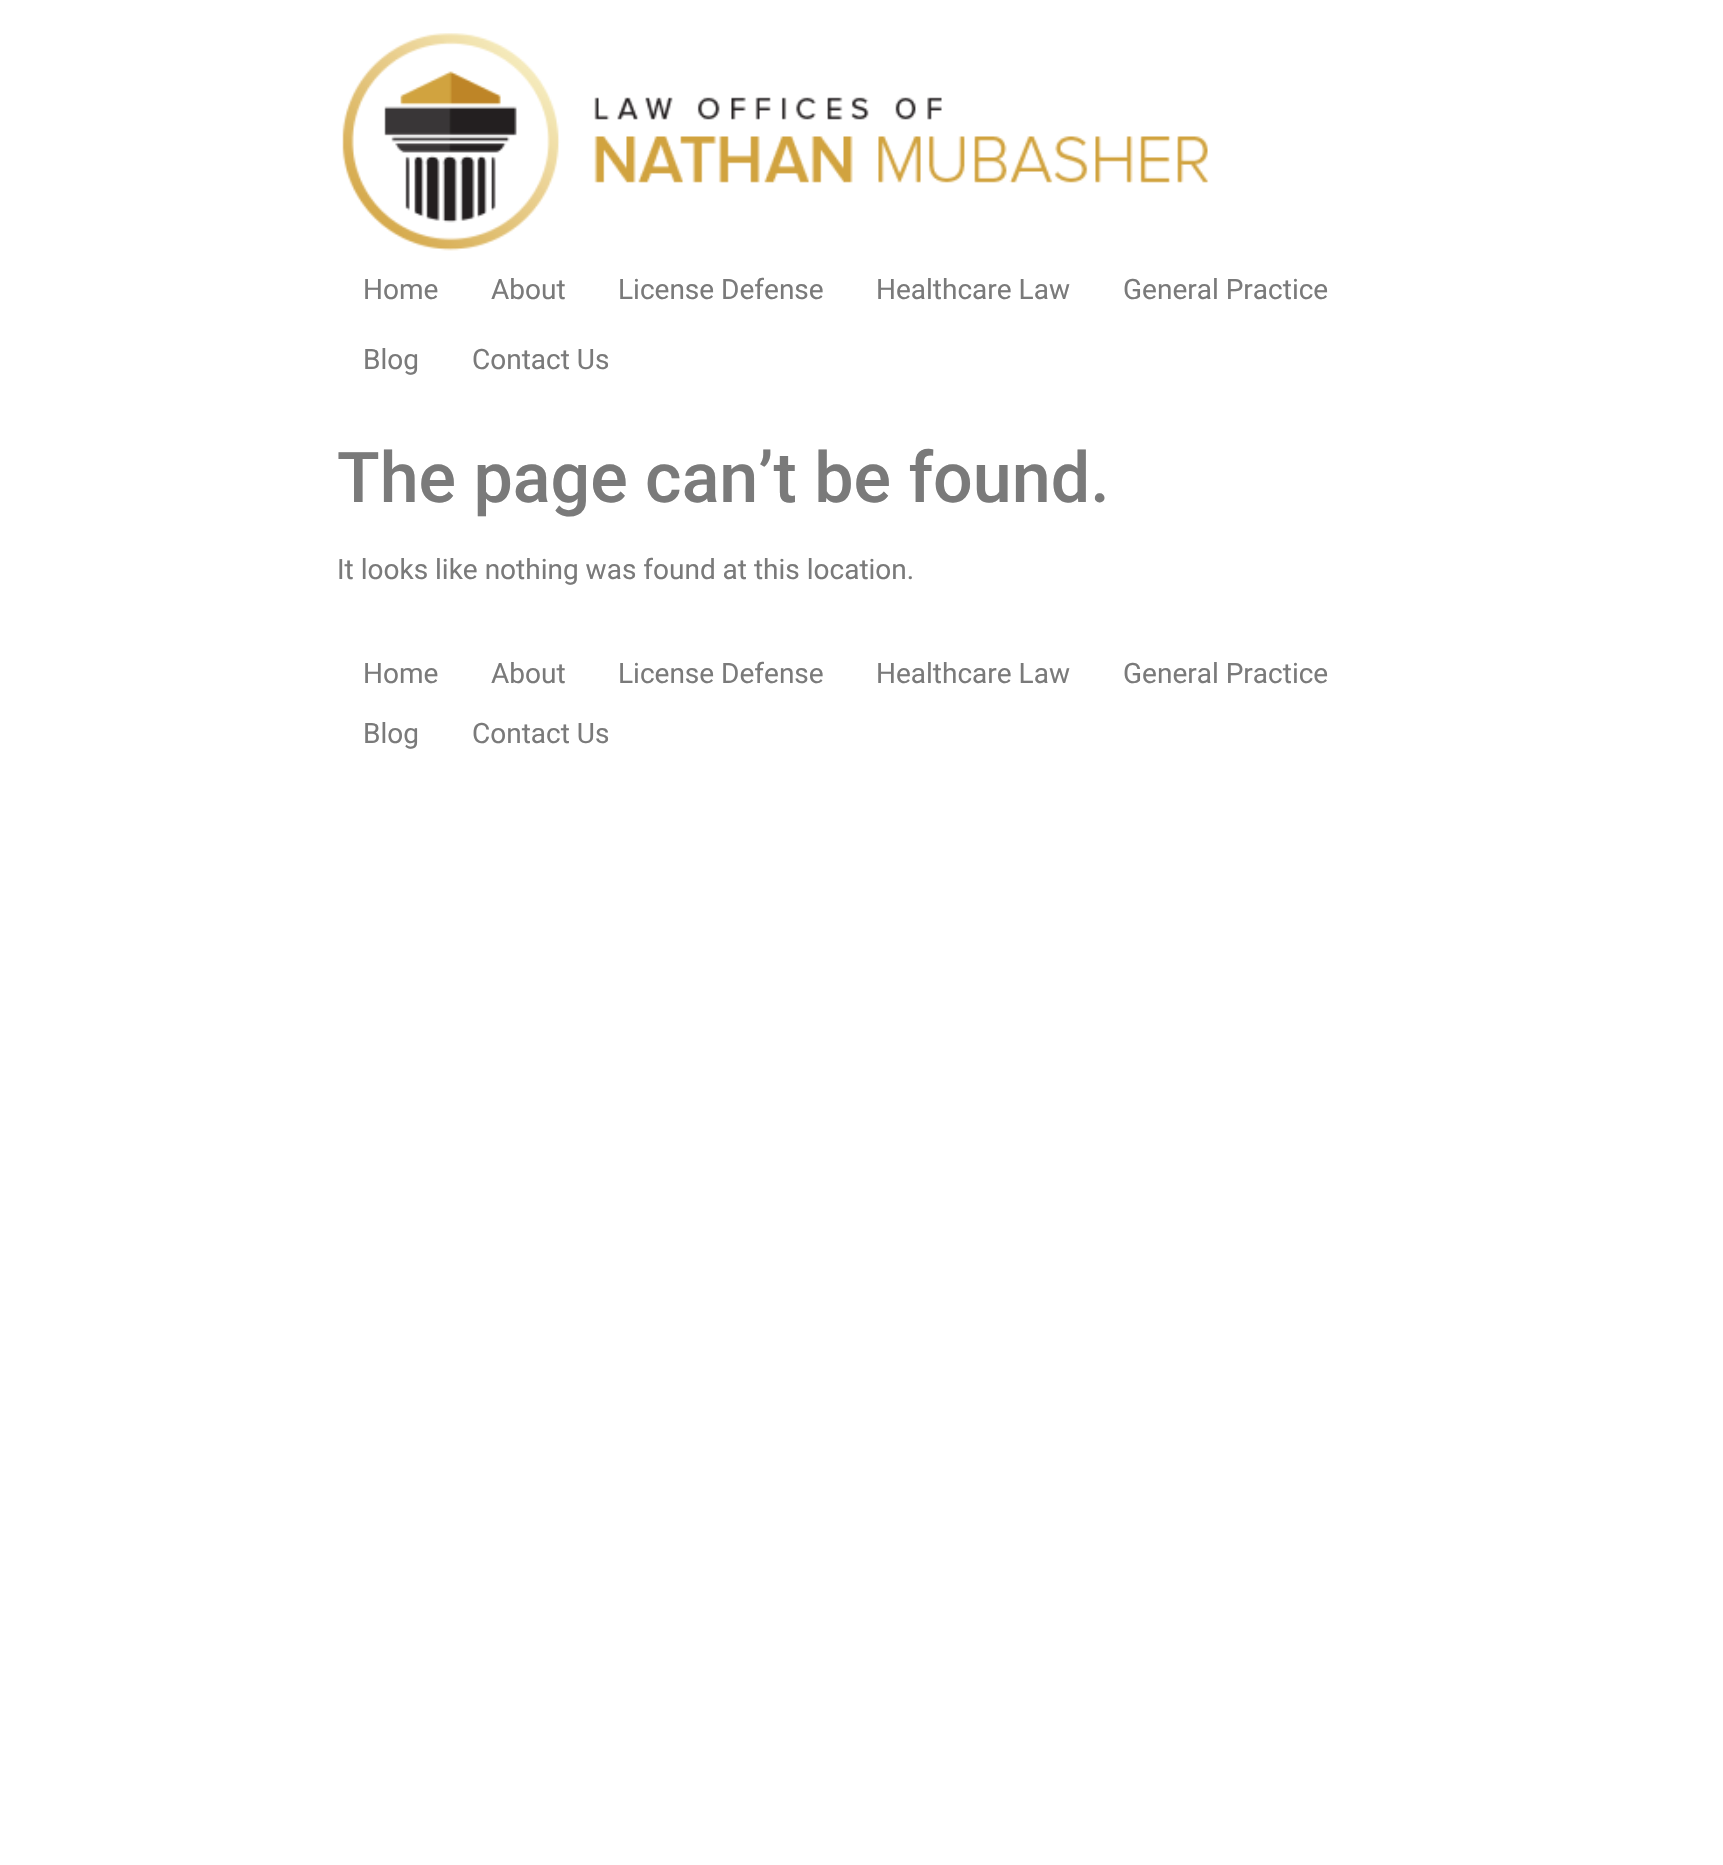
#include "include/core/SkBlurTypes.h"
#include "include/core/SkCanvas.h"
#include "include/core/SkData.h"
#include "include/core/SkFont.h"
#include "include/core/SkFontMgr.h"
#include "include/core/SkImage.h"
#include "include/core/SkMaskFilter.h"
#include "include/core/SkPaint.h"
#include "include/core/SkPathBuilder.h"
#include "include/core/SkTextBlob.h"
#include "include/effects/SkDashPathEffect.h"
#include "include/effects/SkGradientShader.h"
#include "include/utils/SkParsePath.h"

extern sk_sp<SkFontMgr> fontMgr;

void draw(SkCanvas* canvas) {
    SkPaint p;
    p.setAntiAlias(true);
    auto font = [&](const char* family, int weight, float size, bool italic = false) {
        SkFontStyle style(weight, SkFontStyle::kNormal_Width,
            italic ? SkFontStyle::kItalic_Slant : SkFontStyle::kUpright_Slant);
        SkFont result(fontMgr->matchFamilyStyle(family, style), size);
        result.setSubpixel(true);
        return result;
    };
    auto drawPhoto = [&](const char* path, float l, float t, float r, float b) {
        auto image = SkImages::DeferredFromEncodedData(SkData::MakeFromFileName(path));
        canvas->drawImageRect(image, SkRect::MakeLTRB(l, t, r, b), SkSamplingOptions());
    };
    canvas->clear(0xFFFFFFFF);
    drawPhoto("media/1.png", 342, 33, 1209, 251);
    auto font1 = font("Roboto", 400, 28);
    p.setColor(0xFF7A7A7A);
    {
        const struct { const char* s; float x, y; } items[] = {
            {"Home", 363, 299},
            {"About", 491, 299},
            {"License Defense", 618, 299},
            {"Healthcare Law", 876, 299},
            {"General Practice", 1123, 299},
            {"Blog", 363, 369},
            {"Contact Us", 472, 369},
        };
        for (auto [s, x, y] : items) {
            canvas->drawString(s, x, y, font1, p);
        }
    }
    auto font2 = font("Roboto", 500, 70);
    canvas->drawString("The page can’t be found.", 337, 502, font2, p);
    {
        const struct { const char* s; float x, y; } items[] = {
            {"It looks like nothing was found at this location.", 337, 579},
            {"Home", 363, 683},
            {"About", 491, 683},
            {"License Defense", 618, 683},
            {"Healthcare Law", 876, 683},
            {"General Practice", 1123, 683},
            {"Blog", 363, 743},
            {"Contact Us", 472, 743},
        };
        for (auto [s, x, y] : items) {
            canvas->drawString(s, x, y, font1, p);
        }
    }
}
